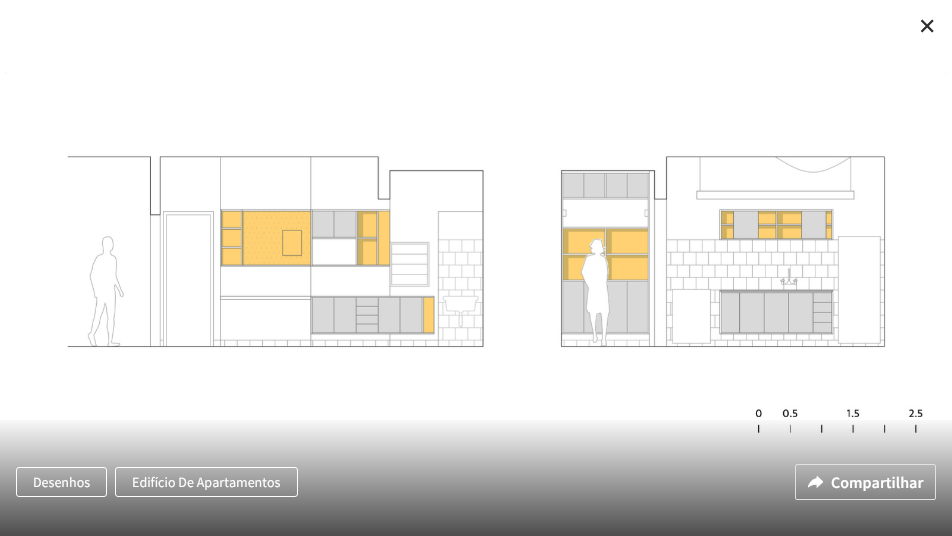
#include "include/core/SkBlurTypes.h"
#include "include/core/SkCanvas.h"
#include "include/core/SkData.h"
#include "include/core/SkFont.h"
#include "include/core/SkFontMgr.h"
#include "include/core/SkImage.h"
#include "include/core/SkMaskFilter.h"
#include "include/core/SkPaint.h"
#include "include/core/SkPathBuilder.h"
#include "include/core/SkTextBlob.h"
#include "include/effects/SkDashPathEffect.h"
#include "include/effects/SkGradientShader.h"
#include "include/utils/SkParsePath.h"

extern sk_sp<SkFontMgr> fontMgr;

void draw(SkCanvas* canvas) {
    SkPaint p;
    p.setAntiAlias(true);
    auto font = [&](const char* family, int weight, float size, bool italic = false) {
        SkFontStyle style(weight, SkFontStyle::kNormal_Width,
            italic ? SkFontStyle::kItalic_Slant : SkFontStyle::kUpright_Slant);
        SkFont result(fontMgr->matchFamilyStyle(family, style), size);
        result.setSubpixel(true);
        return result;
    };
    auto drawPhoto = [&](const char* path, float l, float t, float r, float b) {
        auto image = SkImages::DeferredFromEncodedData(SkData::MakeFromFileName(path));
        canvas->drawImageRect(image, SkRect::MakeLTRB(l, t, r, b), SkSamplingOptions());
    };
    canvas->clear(0xFFFFFFFF);
    auto font1 = font("DejaVu Sans", 400, 22);
    p.setColor(0xFF303030);
    canvas->drawString("✕", 918, 34, font1, p);
    drawPhoto("media/1.png", 5, 72, 947, 464);
    {
        const SkColor colors[] = {0xB3000000, 0x00000000};
        const float stops[] = {0, 1};
        const SkPoint ends[] = {{476, 536}, {476, 416}};
        p.setShader(SkGradientShader::MakeLinear(ends, colors, stops, 2, SkTileMode::kClamp));
        p.setAlpha(255);
    }
    canvas->drawRect(SkRect::MakeLTRB(0, 420, 952, 536), p);
    p.setStyle(SkPaint::kStroke_Style);
    p.setStrokeWidth(1);
    p.setShader(nullptr);
    p.setColor(0xFFFFFFFF);
    canvas->drawRoundRect(SkRect::MakeLTRB(16.5f, 467.5f, 106.5f, 496.5f), 2.5f, 2.5f, p);
    auto font2 = font("Source Sans Pro", 400, 14);
    p.setStyle(SkPaint::kFill_Style);
    canvas->drawString("Desenhos", 33, 487, font2, p);
    p.setStyle(SkPaint::kStroke_Style);
    canvas->drawRoundRect(SkRect::MakeLTRB(115.5f, 467.5f, 297.5f, 496.5f), 2.5f, 2.5f, p);
    p.setStyle(SkPaint::kFill_Style);
    canvas->drawString("Edifício De Apartamentos", 132, 487, font2, p);
    p.setStyle(SkPaint::kStroke_Style);
    p.setColor(0xFFE1E1E1);
    canvas->drawRoundRect(SkRect::MakeLTRB(795.5f, 464.5f, 935.5f, 499.5f), 1.5f, 1.5f, p);
    drawPhoto("media/2.png", 808, 476, 823, 488);
    auto font3 = font("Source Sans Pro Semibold", 600, 16);
    p.setStyle(SkPaint::kFill_Style);
    p.setColor(0xFFFFFFFF);
    canvas->drawString("Compartilhar", 831, 488, font3, p);
}
